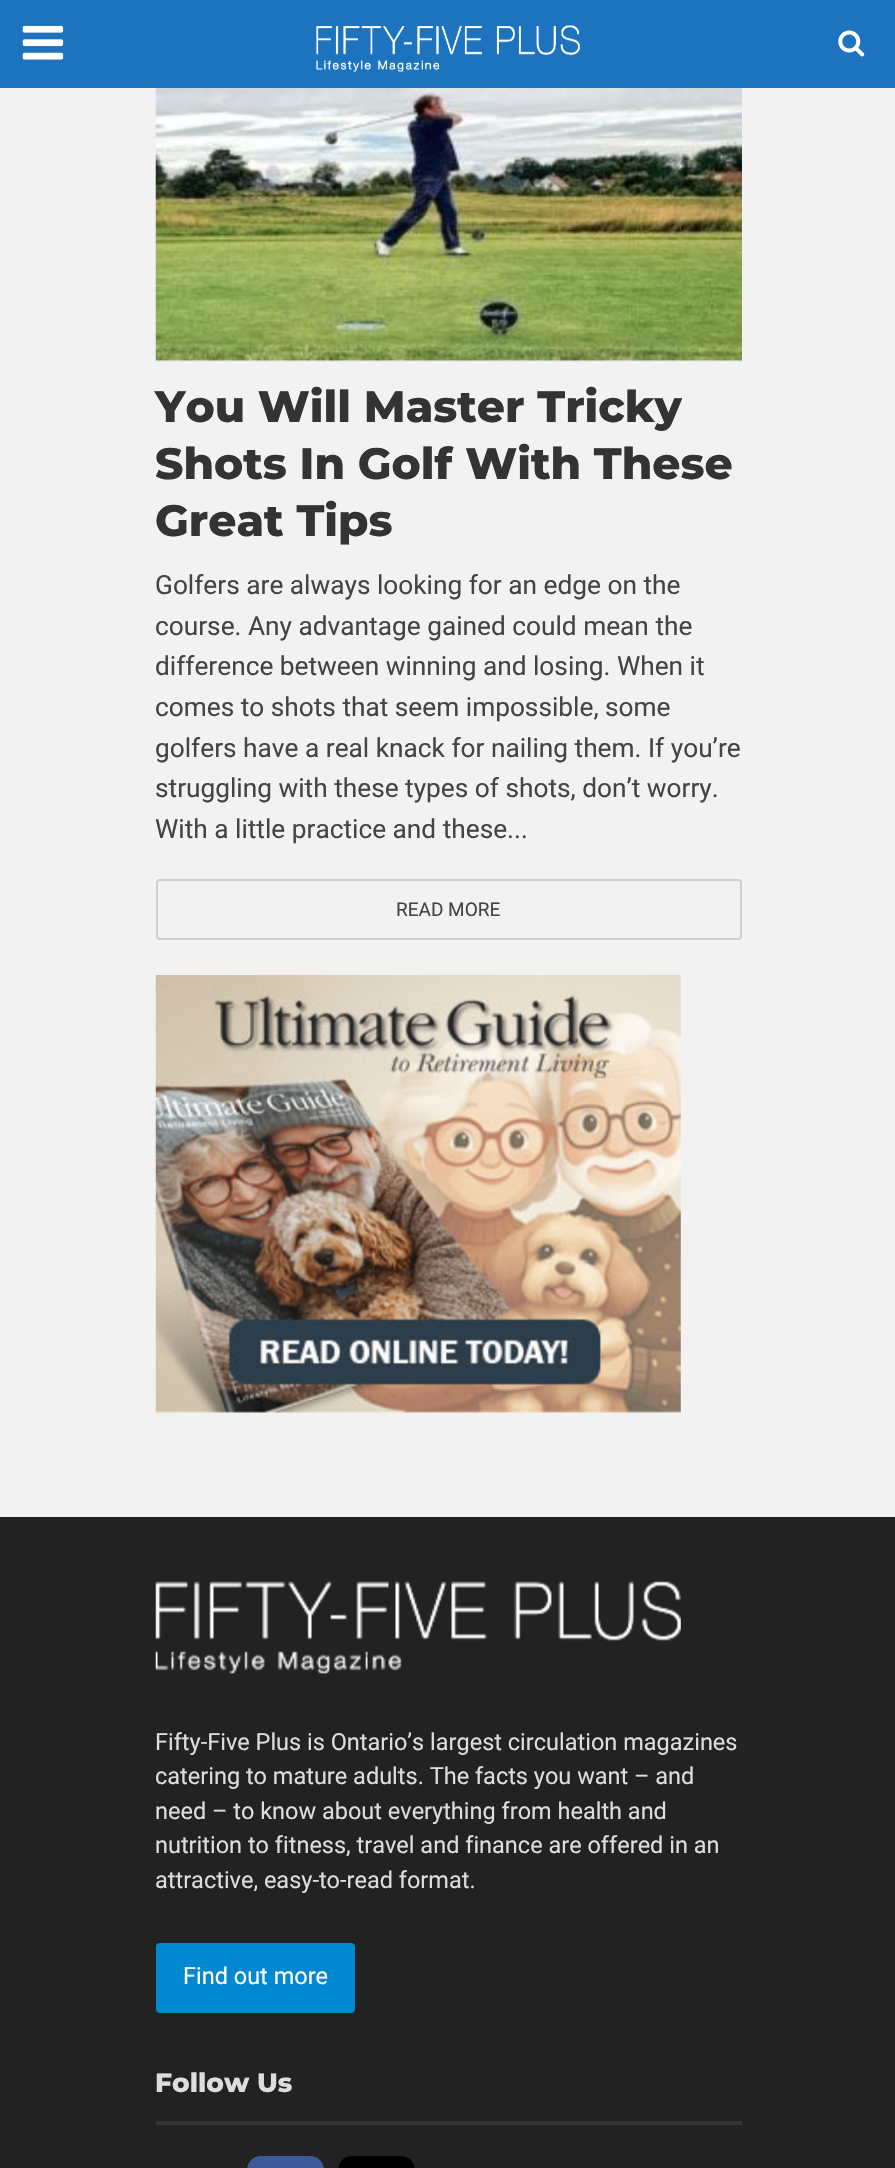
#include "include/core/SkBlurTypes.h"
#include "include/core/SkCanvas.h"
#include "include/core/SkData.h"
#include "include/core/SkFont.h"
#include "include/core/SkFontMgr.h"
#include "include/core/SkImage.h"
#include "include/core/SkMaskFilter.h"
#include "include/core/SkPaint.h"
#include "include/core/SkPathBuilder.h"
#include "include/core/SkTextBlob.h"
#include "include/effects/SkDashPathEffect.h"
#include "include/effects/SkGradientShader.h"
#include "include/utils/SkParsePath.h"

extern sk_sp<SkFontMgr> fontMgr;

void draw(SkCanvas* canvas) {
    SkPaint p;
    p.setAntiAlias(true);
    auto font = [&](const char* family, int weight, float size, bool italic = false) {
        SkFontStyle style(weight, SkFontStyle::kNormal_Width,
            italic ? SkFontStyle::kItalic_Slant : SkFontStyle::kUpright_Slant);
        SkFont result(fontMgr->matchFamilyStyle(family, style), size);
        result.setSubpixel(true);
        return result;
    };
    auto drawPhoto = [&](const char* path, float l, float t, float r, float b) {
        auto image = SkImages::DeferredFromEncodedData(SkData::MakeFromFileName(path));
        canvas->drawImageRect(image, SkRect::MakeLTRB(l, t, r, b), SkSamplingOptions());
    };
    canvas->clear(0xFFF2F2F2);
    p.setColor(0xFF1E73BE);
    canvas->drawRect(SkRect::MakeLTRB(0, 0, 895, 88), p);
    drawPhoto("media/1.png", 22, 25, 64, 60);
    drawPhoto("media/2.png", 316, 25, 580, 72);
    drawPhoto("media/3.png", 838, 30, 865, 57);
    p.setColor(0xFFE5E5E5);
    canvas->drawRect(SkRect::MakeLTRB(156, 360, 742, 361), p);
    drawPhoto("media/4.png", 155, 88, 742, 362);
    auto font1 = font("Montserrat", 800, 43.9f);
    p.setColor(0xFF333333);
    {
        const struct { const char* s; float x, y; } items[] = {
            {"You Will Master Tricky", 155, 422},
            {"Shots In Golf With These", 155, 479},
            {"Great Tips", 155, 536},
        };
        for (auto [s, x, y] : items) {
            canvas->drawString(s, x, y, font1, p);
        }
    }
    auto font2 = font("Roboto", 400, 26.25f);
    p.setColor(0xFF444444);
    {
        const struct { const char* s; float x, y; } items[] = {
            {"Golfers are always looking for an edge on the", 155, 594},
            {"course. Any advantage gained could mean the", 155, 635},
            {"difference between winning and losing. When it", 155, 675},
            {"comes to shots that seem impossible, some", 155, 716},
            {"golfers have a real knack for nailing them. If you’re", 155, 757},
            {"struggling with these types of shots, don’t worry.", 155, 797},
            {"With a little practice and these...", 155, 838},
        };
        for (auto [s, x, y] : items) {
            canvas->drawString(s, x, y, font2, p);
        }
    }
    p.setStyle(SkPaint::kStroke_Style);
    p.setStrokeWidth(2);
    p.setColor(0xFFCFCFCF);
    canvas->drawRoundRect(SkRect::MakeLTRB(157, 880, 741, 939), 3, 3, p);
    auto font3 = font("Roboto", 400, 19);
    p.setStyle(SkPaint::kFill_Style);
    p.setColor(0xFF444444);
    canvas->drawString("READ MORE", 396, 916, font3, p);
    drawPhoto("media/5.png", 155, 975, 681, 1413);
    p.setColor(0xFF222222);
    canvas->drawRect(SkRect::MakeLTRB(0, 1517, 895, 2168), p);
    drawPhoto("media/6.png", 155, 1581, 681, 1674);
    auto font4 = font("Roboto", 400, 23.5f);
    p.setColor(0xFFDDDDDD);
    {
        const struct { const char* s; float x, y; } items[] = {
            {"Fifty-Five Plus is Ontario’s largest circulation magazines", 155, 1750},
            {"catering to mature adults. The facts you want – and", 155, 1784},
            {"need – to know about everything from health and", 155, 1819},
            {"nutrition to fitness, travel and finance are offered in an", 155, 1853},
            {"attractive, easy-to-read format.", 155, 1888},
        };
        for (auto [s, x, y] : items) {
            canvas->drawString(s, x, y, font4, p);
        }
    }
    p.setColor(0xFF0288D1);
    canvas->drawRoundRect(SkRect::MakeLTRB(156, 1943, 355, 2013), 4, 4, p);
    p.setColor(0xFFFFFFFF);
    canvas->drawString("Find out more", 183, 1984, font4, p);
    auto font5 = font("Montserrat", 800, 26.5f);
    p.setColor(0xFFDDDDDD);
    canvas->drawString("Follow Us", 155, 2092, font5, p);
    p.setColor(0xFF353535);
    canvas->drawRect(SkRect::MakeLTRB(156, 2121, 742, 2125), p);
    p.setColor(0xFF3E5B98);
    canvas->drawRoundRect(SkRect::MakeLTRB(247, 2156, 324, 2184), 16, 16, p);
    p.setColor(0xFF000000);
    canvas->drawRoundRect(SkRect::MakeLTRB(338, 2156, 415, 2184), 16, 16, p);
}
